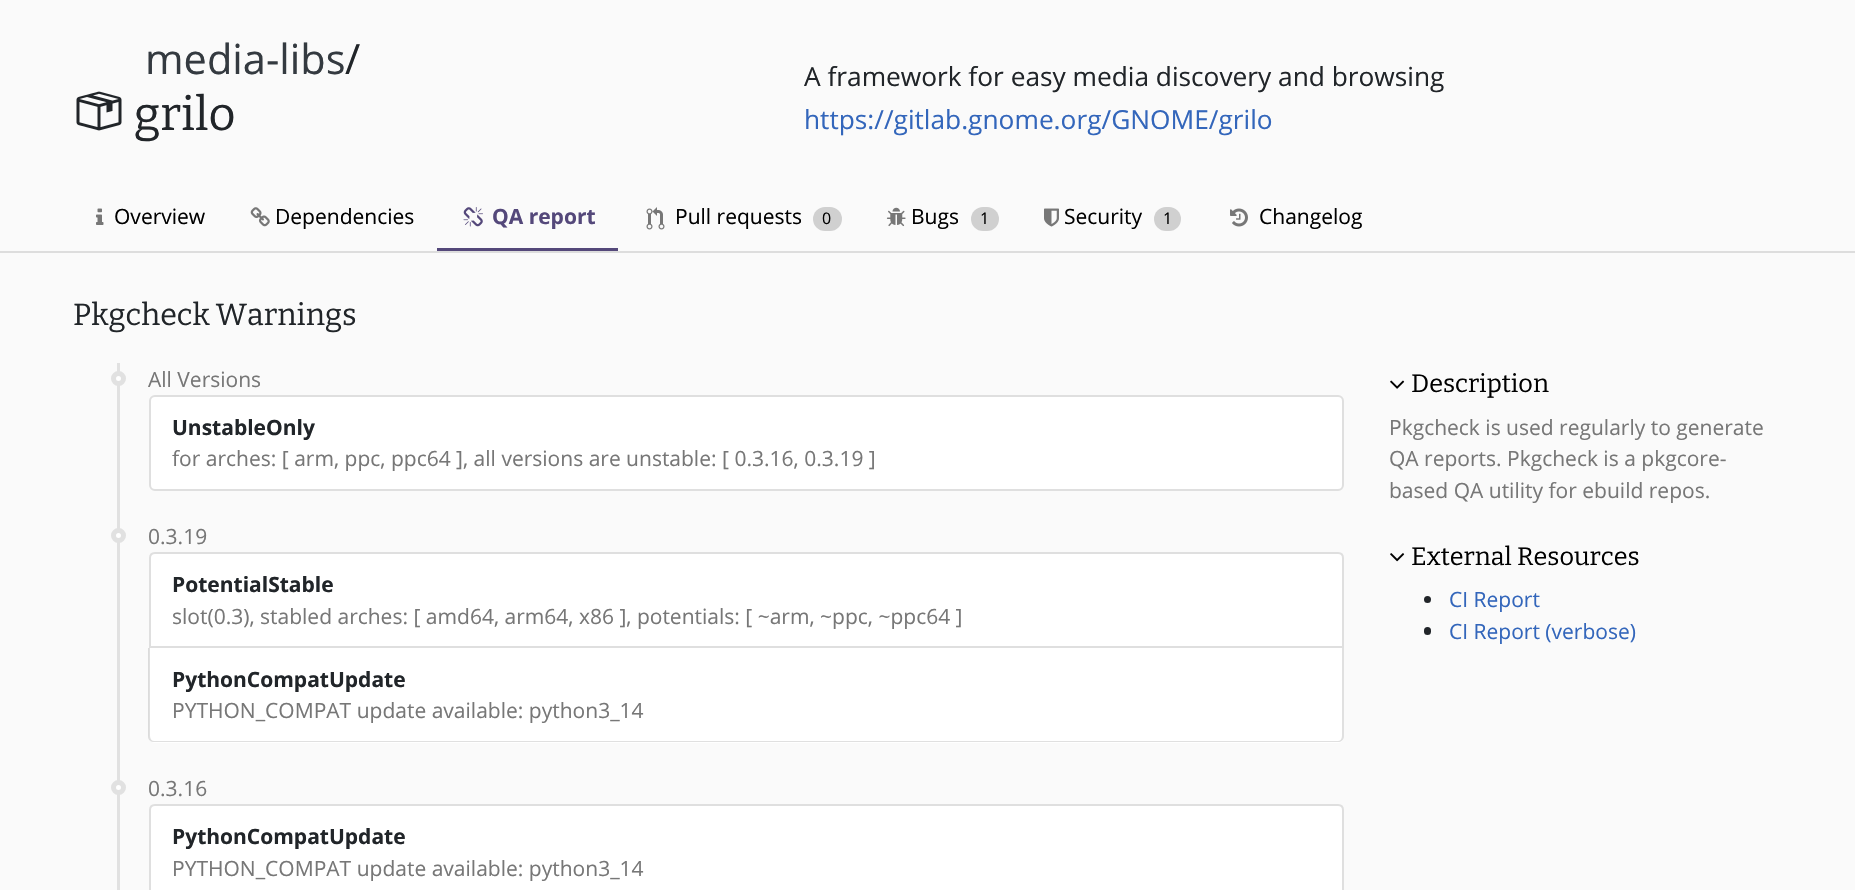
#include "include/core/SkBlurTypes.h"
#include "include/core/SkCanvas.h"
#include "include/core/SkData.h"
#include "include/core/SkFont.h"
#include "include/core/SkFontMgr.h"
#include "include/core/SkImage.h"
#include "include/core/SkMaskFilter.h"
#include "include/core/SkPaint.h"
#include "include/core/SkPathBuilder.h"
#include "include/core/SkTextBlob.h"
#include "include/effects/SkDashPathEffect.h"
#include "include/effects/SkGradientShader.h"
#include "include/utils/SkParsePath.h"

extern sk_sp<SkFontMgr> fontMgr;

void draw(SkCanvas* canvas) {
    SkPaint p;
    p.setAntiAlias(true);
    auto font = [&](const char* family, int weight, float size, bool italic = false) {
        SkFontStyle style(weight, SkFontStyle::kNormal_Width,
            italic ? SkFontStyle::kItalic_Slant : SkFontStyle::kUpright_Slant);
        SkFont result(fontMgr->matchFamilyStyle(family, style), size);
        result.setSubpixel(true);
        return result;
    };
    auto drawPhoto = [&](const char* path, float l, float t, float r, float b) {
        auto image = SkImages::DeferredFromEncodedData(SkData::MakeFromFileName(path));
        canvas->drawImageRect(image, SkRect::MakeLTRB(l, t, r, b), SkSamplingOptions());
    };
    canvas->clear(0xFFFAFAFA);
    auto font1 = font("Open Sans", 400, 41.5f);
    p.setColor(0xFF343A40);
    canvas->drawString("media-libs", 145, 74, font1, p);
    p.setColor(0xFF212529);
    canvas->drawString("/", 345, 74, font1, p);
    drawPhoto("media/1.png", 76, 91, 122, 131);
    auto font2 = font("Bitter", 400, 47);
    canvas->drawString("grilo", 134, 130, font2, p);
    auto font3 = font("Open Sans", 400, 26.25f);
    canvas->drawString("A framework for easy media discovery and browsing", 804, 86, font3, p);
    p.setColor(0xFF3366BB);
    canvas->drawString("https://gitlab.gnome.org/GNOME/grilo", 804, 129, font3, p);
    drawPhoto("media/2.png", 96, 208, 104, 225);
    auto font4 = font("Open Sans", 400, 21);
    p.setColor(0xFF000000);
    canvas->drawString("Overview", 114, 224, font4, p);
    drawPhoto("media/3.png", 250, 207, 270, 227);
    canvas->drawString("Dependencies", 275, 224, font4, p);
    p.setColor(0xFF54487A);
    canvas->drawRect(SkRect::MakeLTRB(437, 248, 618, 251), p);
    drawPhoto("media/4.png", 463, 207, 483, 227);
    auto font5 = font("Open Sans", 700, 21);
    canvas->drawString("QA report", 492, 224, font5, p);
    drawPhoto("media/5.png", 646, 207, 665, 230);
    p.setColor(0xFF000000);
    canvas->drawString("Pull requests", 675, 224, font4, p);
    p.setColor(0xFFD0D0D0);
    canvas->drawRoundRect(SkRect::MakeLTRB(813, 207, 842, 231), 12, 12, p);
    auto font6 = font("Open Sans", 400, 16);
    p.setColor(0xFF000000);
    canvas->drawString("0", 822, 224, font6, p);
    drawPhoto("media/6.png", 886, 207, 906, 227);
    canvas->drawString("Bugs", 911, 224, font4, p);
    p.setColor(0xFFD0D0D0);
    canvas->drawRoundRect(SkRect::MakeLTRB(971, 207, 999, 231), 12, 12, p);
    p.setColor(0xFF000000);
    canvas->drawString("1", 980, 224, font6, p);
    drawPhoto("media/7.png", 1044, 208, 1059, 227);
    canvas->drawString("Security", 1064, 224, font4, p);
    p.setColor(0xFFD0D0D0);
    canvas->drawRoundRect(SkRect::MakeLTRB(1154, 207, 1181, 231), 12, 12, p);
    p.setColor(0xFF000000);
    canvas->drawString("1", 1163, 224, font6, p);
    drawPhoto("media/8.png", 1230, 208, 1248, 227);
    canvas->drawString("Changelog", 1259, 224, font4, p);
    p.setColor(0xFFDDDDDD);
    canvas->drawRect(SkRect::MakeLTRB(0, 251, 1855, 253), p);
    auto font7 = font("Bitter", 400, 30.5f);
    p.setColor(0xFF212529);
    canvas->drawString("Pkgcheck Warnings", 73, 325, font7, p);
    p.setColor(0xFFE1E1E1);
    canvas->drawRect(SkRect::MakeLTRB(117, 363, 120, 890), p);
    p.setColor(0xFFFFFFFF);
    canvas->drawCircle(118.5f, 378.5f, 5, p);
    p.setStyle(SkPaint::kStroke_Style);
    p.setStrokeWidth(5);
    p.setColor(0xFFE1E1E1);
    canvas->drawCircle(118.5f, 378.5f, 5, p);
    p.setStyle(SkPaint::kFill_Style);
    p.setColor(0xFF777777);
    canvas->drawString("All Versions", 148, 387, font4, p);
    p.setColor(0xFFFFFFFF);
    canvas->drawRoundRect(SkRect::MakeLTRB(150, 396, 1343, 490), 5, 5, p);
    p.setStyle(SkPaint::kStroke_Style);
    p.setStrokeWidth(2);
    p.setColor(0xFFDFDFDF);
    canvas->drawRoundRect(SkRect::MakeLTRB(150, 396, 1343, 490), 5, 5, p);
    p.setStyle(SkPaint::kFill_Style);
    p.setColor(0xFF212529);
    canvas->drawString("UnstableOnly", 172, 435, font5, p);
    p.setColor(0xFF777777);
    canvas->drawString("for arches: [ arm, ppc, ppc64 ], all versions are unstable: [ 0.3.16, 0.3.19 ]", 172, 466, font4, p);
    p.setColor(0xFFFFFFFF);
    canvas->drawCircle(118.5f, 535.5f, 5, p);
    p.setStyle(SkPaint::kStroke_Style);
    p.setStrokeWidth(5);
    p.setColor(0xFFE1E1E1);
    canvas->drawCircle(118.5f, 535.5f, 5, p);
    p.setStyle(SkPaint::kFill_Style);
    p.setColor(0xFF777777);
    canvas->drawString("0.3.19", 148, 544, font4, p);
    p.setColor(0xFFFFFFFF);
    canvas->drawPath(SkPathBuilder().moveTo(155, 553).lineTo(1338, 553).cubicTo(1341, 553, 1343, 555, 1343, 558).lineTo(1343, 647).lineTo(150, 647).lineTo(150, 558).cubicTo(150, 555, 152, 553, 155, 553).close().detach(), p);
    p.setStyle(SkPaint::kStroke_Style);
    p.setStrokeWidth(2);
    p.setColor(0xFFDFDFDF);
    canvas->drawPath(SkPathBuilder().moveTo(155, 553).lineTo(1338, 553).cubicTo(1341, 553, 1343, 555, 1343, 558).lineTo(1343, 647).lineTo(150, 647).lineTo(150, 558).cubicTo(150, 555, 152, 553, 155, 553).close().detach(), p);
    p.setStyle(SkPaint::kFill_Style);
    p.setColor(0xFF212529);
    canvas->drawString("PotentialStable", 172, 592, font5, p);
    p.setColor(0xFF777777);
    canvas->drawString("slot(0.3), stabled arches: [ amd64, arm64, x86 ], potentials: [ ~arm, ~ppc, ~ppc64 ]", 172, 624, font4, p);
    p.setColor(0xFFFFFFFF);
    canvas->drawPath(SkPathBuilder().moveTo(149, 648).lineTo(1344, 648).lineTo(1344, 737).cubicTo(1344, 740.5f, 1341.5f, 743, 1338, 743).lineTo(155, 743).cubicTo(151.5f, 743, 149, 740.5f, 149, 737).close().detach(), p);
    p.setColor(0x1F000000);
    canvas->drawPath(SkPathBuilder(SkPathFillType::kEvenOdd).moveTo(148, 648).lineTo(1344, 648).lineTo(1344, 736).cubicTo(1344, 740, 1341, 742, 1338, 742).lineTo(154, 742).cubicTo(151, 742, 148, 740, 148, 736).close().moveTo(150, 648).lineTo(1342, 648).lineTo(1342, 736).cubicTo(1342, 739, 1340, 741, 1338, 741).lineTo(154, 741).cubicTo(152, 741, 150, 739, 150, 736).close().detach(), p);
    p.setColor(0xFF212529);
    canvas->drawString("PythonCompatUpdate", 172, 687, font5, p);
    p.setColor(0xFF777777);
    canvas->drawString("PYTHON_COMPAT update available: python3_14", 172, 718, font4, p);
    p.setColor(0xFFFFFFFF);
    canvas->drawCircle(118.5f, 787.5f, 5, p);
    p.setStyle(SkPaint::kStroke_Style);
    p.setStrokeWidth(5);
    p.setColor(0xFFE1E1E1);
    canvas->drawCircle(118.5f, 787.5f, 5, p);
    p.setStyle(SkPaint::kFill_Style);
    p.setColor(0xFF777777);
    canvas->drawString("0.3.16", 148, 796, font4, p);
    p.setColor(0xFFFFFFFF);
    canvas->drawPath(SkPathBuilder().moveTo(155, 805).lineTo(1338, 805).cubicTo(1341, 805, 1343, 807, 1343, 810).lineTo(1343, 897).lineTo(150, 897).lineTo(150, 810).cubicTo(150, 807, 152, 805, 155, 805).close().detach(), p);
    p.setStyle(SkPaint::kStroke_Style);
    p.setStrokeWidth(2);
    p.setColor(0xFFDFDFDF);
    canvas->drawPath(SkPathBuilder().moveTo(155, 805).lineTo(1338, 805).cubicTo(1341, 805, 1343, 807, 1343, 810).lineTo(1343, 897).lineTo(150, 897).lineTo(150, 810).cubicTo(150, 807, 152, 805, 155, 805).close().detach(), p);
    p.setStyle(SkPaint::kFill_Style);
    p.setColor(0xFF212529);
    canvas->drawString("PythonCompatUpdate", 172, 844, font5, p);
    p.setColor(0xFF777777);
    canvas->drawString("PYTHON_COMPAT update available: python3_14", 172, 876, font4, p);
    drawPhoto("media/9.png", 1390, 380, 1405, 389);
    auto font8 = font("Bitter", 400, 25.25f);
    p.setColor(0xFF000000);
    canvas->drawString("Description", 1411, 392, font8, p);
    p.setColor(0xFF777777);
    {
        const struct { const char* s; float x, y; } items[] = {
            {"Pkgcheck is used regularly to generate", 1389, 435},
            {"QA reports. Pkgcheck is a pkgcore-", 1389, 466},
            {"based QA utility for ebuild repos.", 1389, 498},
        };
        for (auto [s, x, y] : items) {
            canvas->drawString(s, x, y, font4, p);
        }
    }
    drawPhoto("media/10.png", 1390, 553, 1405, 562);
    p.setColor(0xFF000000);
    canvas->drawString("External Resources", 1411, 565, font8, p);
    p.setColor(0xFF212529);
    canvas->drawCircle(1427.5f, 599.5f, 3.5f, p);
    p.setColor(0xFF3366BB);
    canvas->drawString("CI Report", 1449, 607, font4, p);
    p.setColor(0xFF212529);
    canvas->drawRoundRect(SkRect::MakeLTRB(1424, 627, 1431, 635), 3.5f, 3.5f, p);
    p.setColor(0xFF3366BB);
    canvas->drawString("CI Report (verbose)", 1449, 639, font4, p);
}
